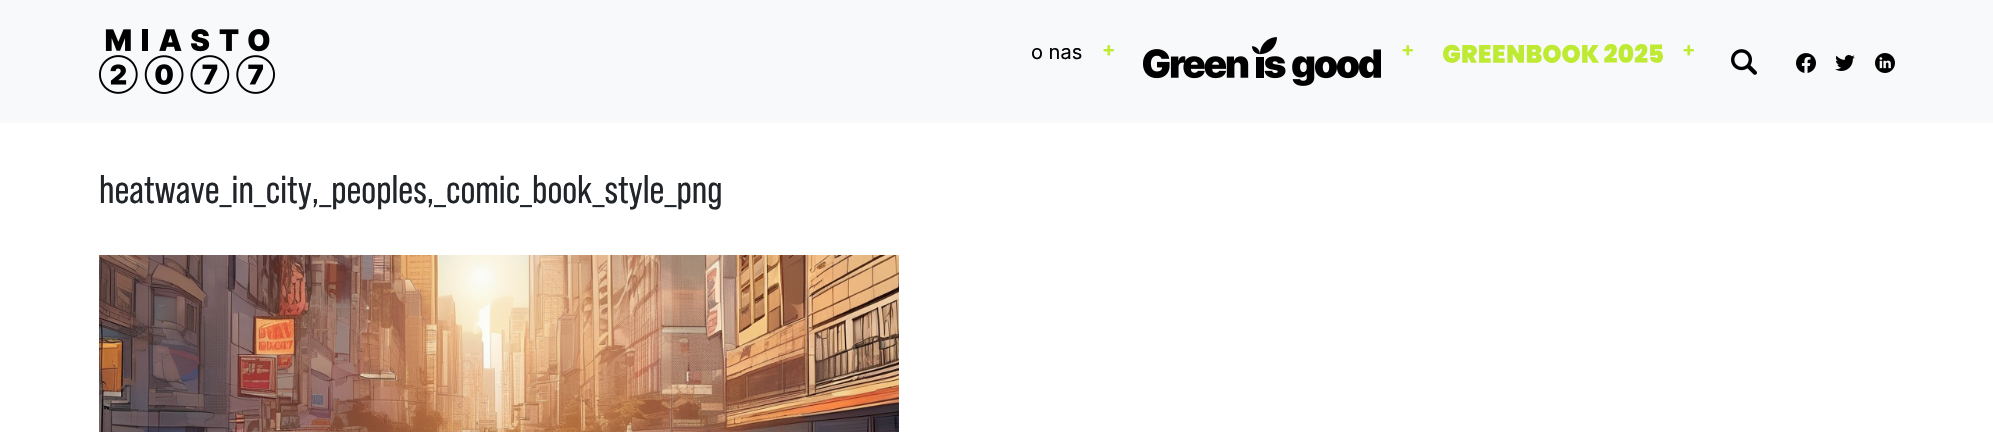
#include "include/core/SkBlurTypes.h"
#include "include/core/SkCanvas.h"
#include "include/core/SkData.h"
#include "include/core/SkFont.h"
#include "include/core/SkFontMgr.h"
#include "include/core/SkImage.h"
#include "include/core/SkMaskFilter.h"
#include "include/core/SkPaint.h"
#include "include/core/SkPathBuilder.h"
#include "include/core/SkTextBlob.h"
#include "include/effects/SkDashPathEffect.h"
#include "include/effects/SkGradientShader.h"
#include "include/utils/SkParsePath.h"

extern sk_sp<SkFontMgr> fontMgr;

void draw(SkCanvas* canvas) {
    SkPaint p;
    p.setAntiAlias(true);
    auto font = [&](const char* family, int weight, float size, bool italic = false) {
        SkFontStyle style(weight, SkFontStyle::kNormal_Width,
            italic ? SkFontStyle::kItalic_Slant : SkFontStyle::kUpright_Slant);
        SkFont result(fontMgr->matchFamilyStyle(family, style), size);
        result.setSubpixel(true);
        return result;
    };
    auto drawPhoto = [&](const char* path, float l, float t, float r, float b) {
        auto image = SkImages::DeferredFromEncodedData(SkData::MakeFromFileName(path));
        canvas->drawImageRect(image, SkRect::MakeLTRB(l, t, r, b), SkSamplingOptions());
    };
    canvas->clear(0xFFFFFFFF);
    p.setColor(0xFFF8F9FA);
    canvas->drawRect(SkRect::MakeLTRB(0, 0, 1993, 123), p);
    drawPhoto("media/1.png", 99, 29, 275, 94);
    auto font1 = font("Inter", 400, 20);
    p.setColor(0xFF000000);
    canvas->drawString("o nas", 1031, 59, font1, p);
    auto font2 = font("Inter", 700, 20);
    p.setColor(0xFFC0EB33);
    canvas->drawString("+", 1102, 56, font2, p);
    drawPhoto("media/2.png", 1143, 37, 1381, 86);
    canvas->drawString("+", 1401, 56, font2, p);
    drawPhoto("media/3.png", 1443, 44, 1663, 63);
    canvas->drawString("+", 1682, 56, font2, p);
    drawPhoto("media/4.png", 1731, 49, 1757, 75);
    drawPhoto("media/5.png", 1796, 53, 1816, 73);
    drawPhoto("media/6.png", 1835, 55, 1855, 71);
    drawPhoto("media/7.png", 1875, 53, 1895, 73);
    auto font3 = font("Bebas Neue", 400, 40);
    p.setColor(0xFF212529);
    canvas->drawString("heatwave_in_city,_peoples,_comic_book_style_png", 99, 203, font3, p);
    drawPhoto("media/8.png", 99, 255, 899, 432);
}
